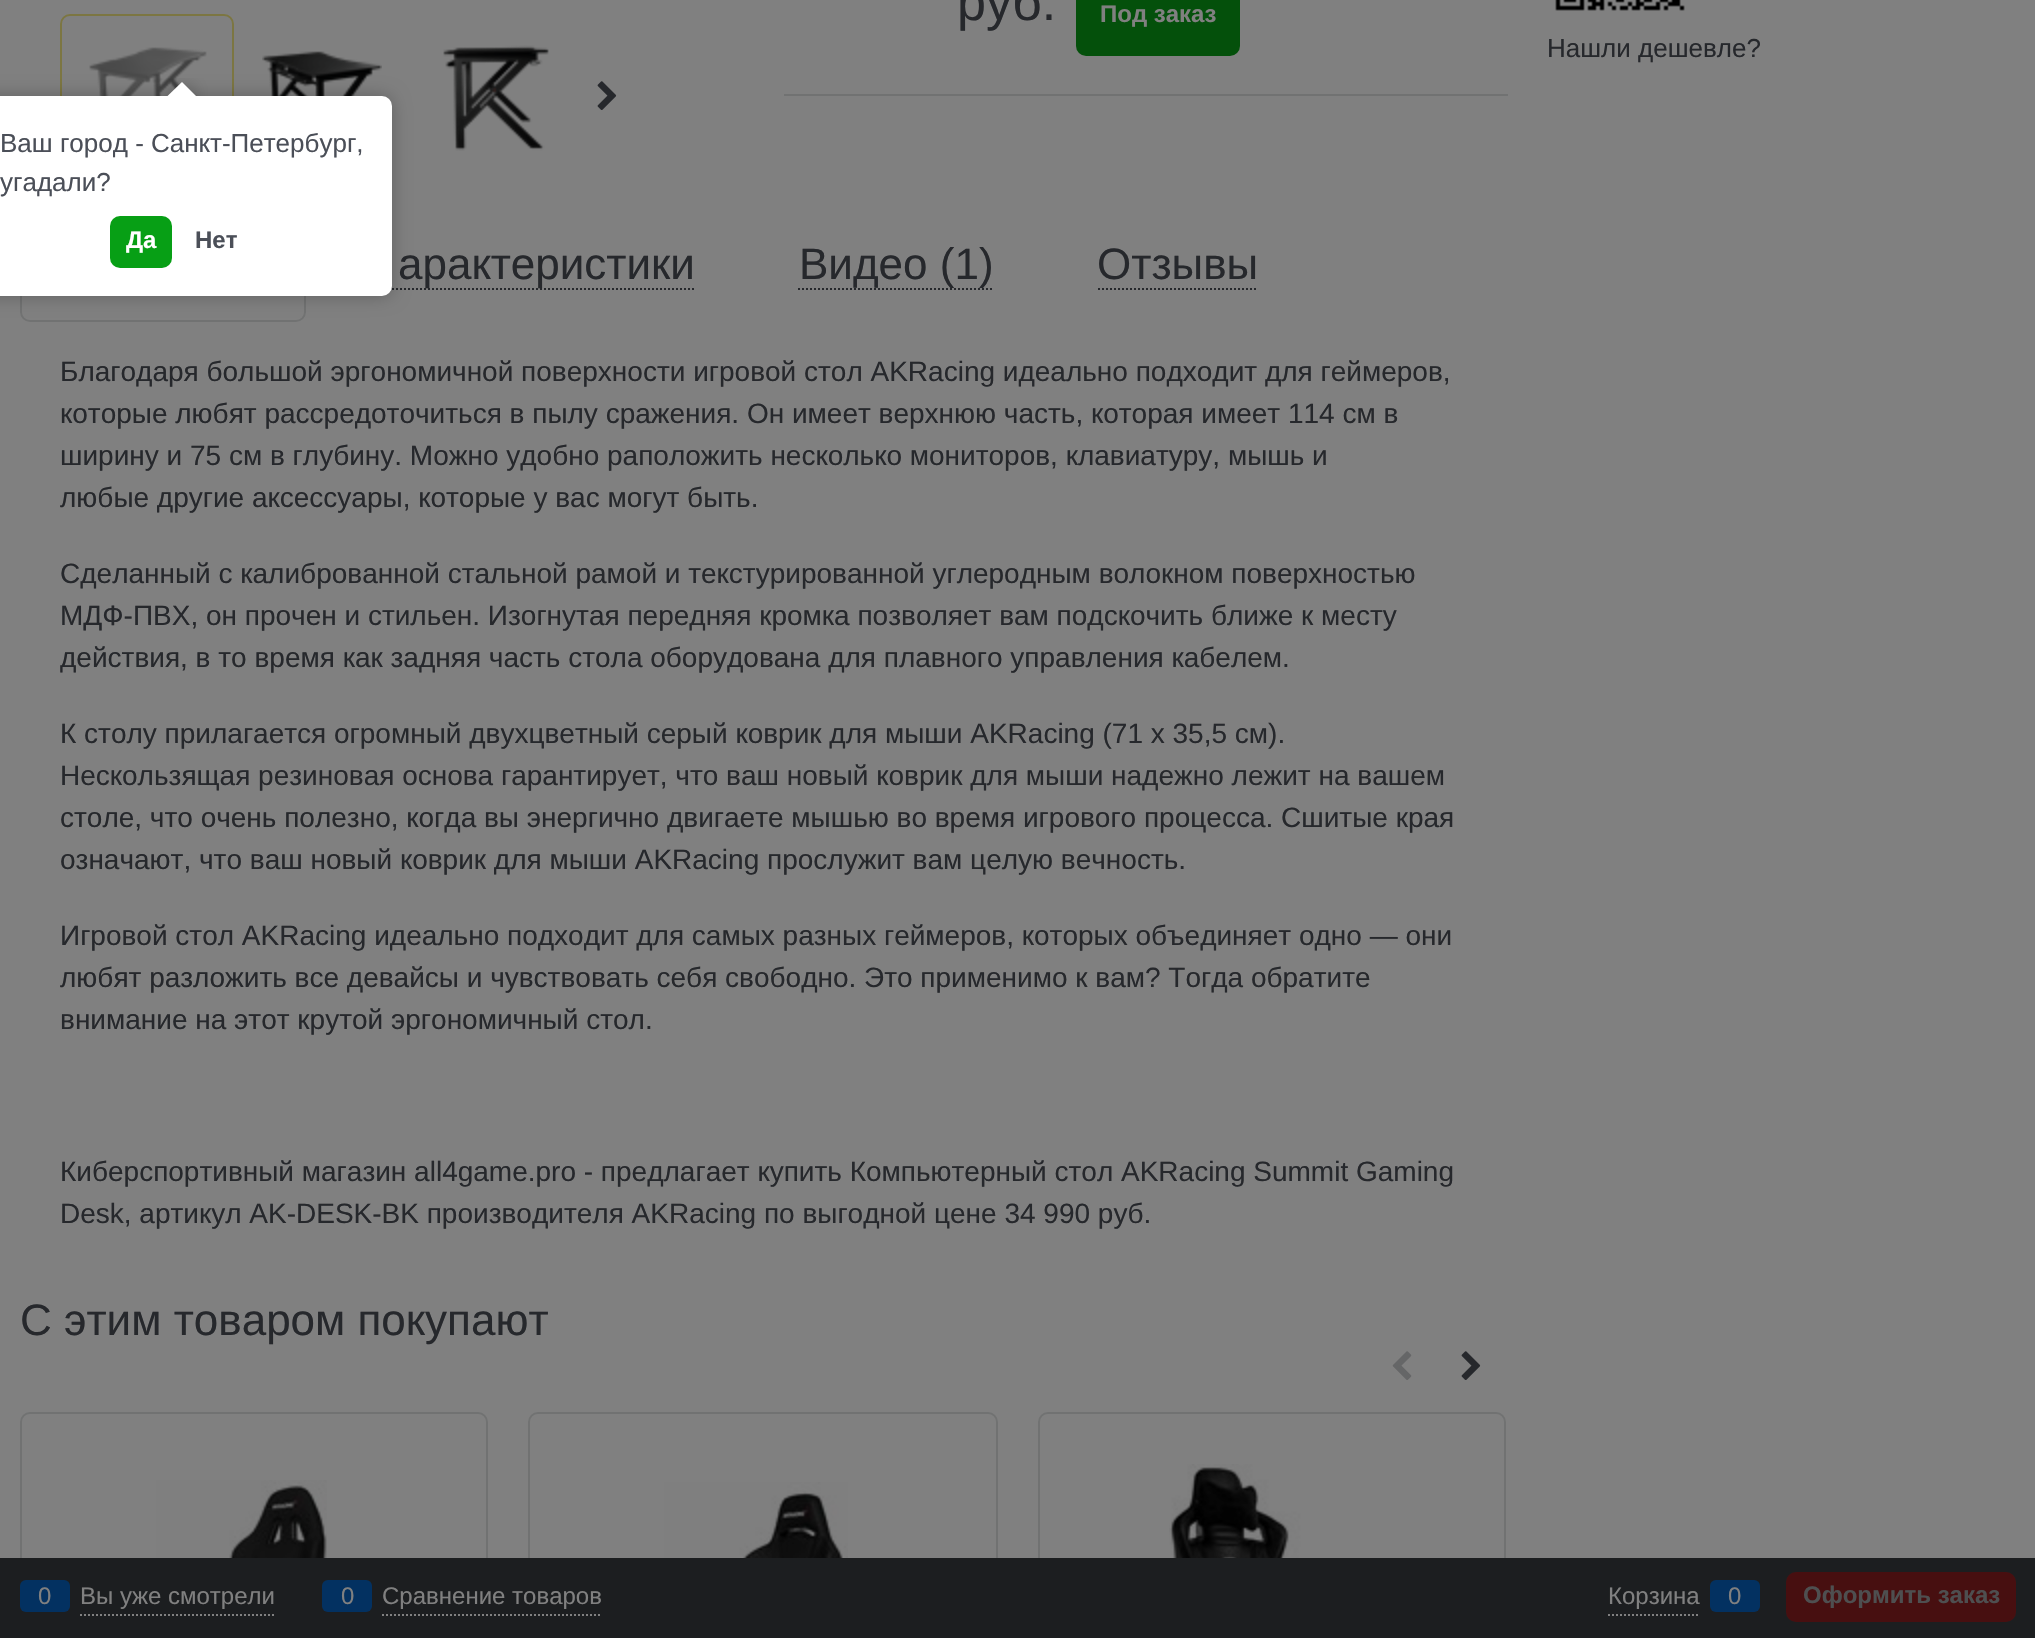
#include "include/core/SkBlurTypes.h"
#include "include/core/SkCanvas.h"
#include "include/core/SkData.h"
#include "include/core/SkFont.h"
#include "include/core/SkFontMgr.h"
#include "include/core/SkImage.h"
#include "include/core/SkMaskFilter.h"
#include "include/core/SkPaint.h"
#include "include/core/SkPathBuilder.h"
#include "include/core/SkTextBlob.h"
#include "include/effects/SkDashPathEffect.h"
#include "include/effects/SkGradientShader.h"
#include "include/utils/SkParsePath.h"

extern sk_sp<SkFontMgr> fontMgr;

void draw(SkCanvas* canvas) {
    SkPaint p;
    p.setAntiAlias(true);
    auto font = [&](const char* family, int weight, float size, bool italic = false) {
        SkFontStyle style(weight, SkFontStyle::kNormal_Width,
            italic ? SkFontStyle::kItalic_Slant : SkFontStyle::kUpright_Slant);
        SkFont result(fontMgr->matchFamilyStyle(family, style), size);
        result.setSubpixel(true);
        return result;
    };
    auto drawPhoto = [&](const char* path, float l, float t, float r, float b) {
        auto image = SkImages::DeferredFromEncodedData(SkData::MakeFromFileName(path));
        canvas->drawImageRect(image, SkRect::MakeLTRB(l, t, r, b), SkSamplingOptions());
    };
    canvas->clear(0xFF808080);
    p.setStyle(SkPaint::kStroke_Style);
    p.setStrokeWidth(2);
    p.setColor(0xFF7C7642);
    canvas->drawRoundRect(SkRect::MakeLTRB(61, 15, 233, 181), 9, 9, p);
    drawPhoto("media/1.png", 89, 47, 207, 96);
    drawPhoto("media/2.png", 262, 51, 382, 96);
    drawPhoto("media/3.png", 443, 45, 549, 151);
    drawPhoto("media/4.png", 597, 81, 617, 110);
    p.setStyle(SkPaint::kFill_Style);
    p.setColor(0xFF717272);
    canvas->drawRect(SkRect::MakeLTRB(784, 94, 1508, 96), p);
    auto font1 = font("Liberation Sans", 400, 52);
    p.setColor(0xFF26282C);
    canvas->drawString("руб.", 957, 20, font1, p);
    p.setColor(0xFF04500B);
    canvas->drawRoundRect(SkRect::MakeLTRB(1076, -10, 1240, 56), 10, 10, p);
    auto font2 = font("Liberation Sans", 700, 24);
    p.setColor(0xFF808080);
    canvas->drawString("Под заказ", 1100, 22, font2, p);
    p.setStyle(SkPaint::kStroke_Style);
    p.setColor(0xFF717272);
    canvas->drawRoundRect(SkRect::MakeLTRB(21, 213, 305, 321), 9, 9, p);
    p.setColor(0xFF26282C);
    p.setPathEffect(SkDashPathEffect::Make({{2, 2}}, 0));
    canvas->drawPath(SkPathBuilder().moveTo(368, 289).lineTo(694, 289).detach(), p);
    p.setPathEffect(nullptr);
    auto font3 = font("Liberation Sans", 400, 44);
    p.setStyle(SkPaint::kFill_Style);
    canvas->drawString("арактеристики", 398, 279, font3, p);
    p.setStyle(SkPaint::kStroke_Style);
    p.setPathEffect(SkDashPathEffect::Make({{2, 2}}, 0));
    canvas->drawPath(SkPathBuilder().moveTo(798, 289).lineTo(994, 289).detach(), p);
    p.setPathEffect(nullptr);
    p.setStyle(SkPaint::kFill_Style);
    canvas->drawString("Видео (1)", 799, 279, font3, p);
    p.setStyle(SkPaint::kStroke_Style);
    p.setPathEffect(SkDashPathEffect::Make({{2, 2}}, 0));
    canvas->drawPath(SkPathBuilder().moveTo(1098, 289).lineTo(1258, 289).detach(), p);
    p.setPathEffect(nullptr);
    p.setStyle(SkPaint::kFill_Style);
    canvas->drawString("Отзывы", 1097, 279, font3, p);
    auto font4 = font("Liberation Sans", 400, 28);
    {
        const struct { const char* s; float x, y; } items[] = {
            {"Благодаря большой эргономичной поверхности игровой стол AKRacing идеально подходит для геймеров,", 60, 381},
            {"которые любят рассредоточиться в пылу сражения. Он имеет верхнюю часть, которая имеет 114 см в", 60, 423},
            {"ширину и 75 см в глубину. Можно удобно раположить несколько мониторов, клавиатуру, мышь и", 60, 465},
            {"любые другие аксессуары, которые у вас могут быть.", 60, 507},
            {"Сделанный с калиброванной стальной рамой и текстурированной углеродным волокном поверхностью", 60, 583},
            {"МДФ-ПВХ, он прочен и стильен. Изогнутая передняя кромка позволяет вам подскочить ближе к месту", 60, 625},
            {"действия, в то время как задняя часть стола оборудована для плавного управления кабелем.", 60, 667},
            {"К столу прилагается огромный двухцветный серый коврик для мыши AKRacing (71 х 35,5 см).", 60, 743},
            {"Нескользящая резиновая основа гарантирует, что ваш новый коврик для мыши надежно лежит на вашем", 60, 785},
            {"столе, что очень полезно, когда вы энергично двигаете мышью во время игрового процесса. Сшитые края", 60, 827},
            {"означают, что ваш новый коврик для мыши AKRacing прослужит вам целую вечность.", 60, 869},
            {"Игровой стол AKRacing идеально подходит для самых разных геймеров, которых объединяет одно — они", 60, 945},
            {"любят разложить все девайсы и чувствовать себя свободно. Это применимо к вам? Тогда обратите", 60, 987},
            {"внимание на этот крутой эргономичный стол.", 60, 1029},
            {"Киберспортивный магазин аll4game.pro - предлагает купить Компьютерный cтол AKRacing Summit Gaming", 60, 1181},
            {"Desk, артикул AK-DESK-BK производителя AKRacing по выгодной цене 34 990 руб.", 60, 1223},
        };
        for (auto [s, x, y] : items) {
            canvas->drawString(s, x, y, font4, p);
        }
    }
    canvas->drawString("С этим товаром покупают", 20, 1335, font3, p);
    drawPhoto("media/5.png", 1392, 1351, 1412, 1380);
    drawPhoto("media/4.png", 1461, 1351, 1481, 1380);
    p.setStyle(SkPaint::kStroke_Style);
    p.setColor(0xFF717272);
    canvas->drawRoundRect(SkRect::MakeLTRB(21, 1413, 487, 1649), 9, 9, p);
    drawPhoto("media/6.png", 156, 1480, 327, 1558);
    canvas->drawRoundRect(SkRect::MakeLTRB(529, 1413, 997, 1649), 9, 9, p);
    drawPhoto("media/7.png", 664, 1482, 848, 1558);
    canvas->drawRoundRect(SkRect::MakeLTRB(1039, 1413, 1505, 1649), 9, 9, p);
    drawPhoto("media/8.png", 1169, 1464, 1380, 1558);
    drawPhoto("media/9.png", 1555, 0, 1685, 11);
    auto font5 = font("Liberation Sans", 400, 26);
    p.setStyle(SkPaint::kFill_Style);
    p.setColor(0xFF26282C);
    canvas->drawString("Нашли дешевле?", 1547, 57, font5, p);
    p.setColor(0xFF1C1E20);
    canvas->drawRect(SkRect::MakeLTRB(0, 1558, 2035, 1638), p);
    p.setStyle(SkPaint::kStroke_Style);
    p.setColor(0xFF808080);
    p.setPathEffect(SkDashPathEffect::Make({{2, 2}}, 0));
    canvas->drawPath(SkPathBuilder().moveTo(80, 1615).lineTo(274, 1615).detach(), p);
    p.setPathEffect(nullptr);
    p.setStyle(SkPaint::kFill_Style);
    p.setColor(0xFF033161);
    canvas->drawRoundRect(SkRect::MakeLTRB(20, 1580, 70, 1612), 6, 6, p);
    auto font6 = font("Liberation Sans", 400, 24);
    p.setColor(0xFF808080);
    canvas->drawString("0", 38, 1604, font6, p);
    canvas->drawString("Вы уже смотрели", 80, 1604, font6, p);
    p.setStyle(SkPaint::kStroke_Style);
    p.setPathEffect(SkDashPathEffect::Make({{2, 2}}, 0));
    canvas->drawPath(SkPathBuilder().moveTo(382, 1615).lineTo(602, 1615).detach(), p);
    p.setPathEffect(nullptr);
    p.setStyle(SkPaint::kFill_Style);
    p.setColor(0xFF033161);
    canvas->drawRoundRect(SkRect::MakeLTRB(322, 1580, 372, 1612), 6, 6, p);
    p.setColor(0xFF808080);
    canvas->drawString("0", 341, 1604, font6, p);
    canvas->drawString("Сравнение товаров", 382, 1604, font6, p);
    p.setStyle(SkPaint::kStroke_Style);
    p.setPathEffect(SkDashPathEffect::Make({{2, 2}}, 0));
    canvas->drawPath(SkPathBuilder().moveTo(1608, 1615).lineTo(1700, 1615).detach(), p);
    p.setPathEffect(nullptr);
    p.setStyle(SkPaint::kFill_Style);
    canvas->drawString("Корзина", 1608, 1604, font6, p);
    p.setColor(0xFF033161);
    canvas->drawRoundRect(SkRect::MakeLTRB(1710, 1580, 1760, 1612), 6, 6, p);
    p.setColor(0xFF808080);
    canvas->drawString("0", 1728, 1604, font6, p);
    p.setColor(0xFF470F10);
    canvas->drawRoundRect(SkRect::MakeLTRB(1786, 1572, 2016, 1622), 10, 10, p);
    p.setColor(0xFF4E4F50);
    canvas->drawString("Оформить заказ", 1803, 1603, font2, p);
    p.setColor(0x40000000);
    p.setMaskFilter(SkMaskFilter::MakeBlur(kNormal_SkBlurStyle, 9));
    canvas->drawRoundRect(SkRect::MakeLTRB(-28, 96, 392, 296), 10, 10, p);
    p.setMaskFilter(nullptr);
    p.setColor(0xFFFFFFFF);
    canvas->drawRoundRect(SkRect::MakeLTRB(-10, 96, 392, 296), 10, 10, p);
    canvas->save();
    canvas->clipRect(SkRect::MakeLTRB(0, 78, 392, 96));
    p.setColor(0x40000000);
    p.setMaskFilter(SkMaskFilter::MakeBlur(kNormal_SkBlurStyle, 9));
    canvas->drawRect(SkRect::MakeLTRB(172, 86, 192, 106), p);
    p.setMaskFilter(nullptr);
    canvas->restore();
    canvas->save();
    canvas->clipRect(SkRect::MakeLTRB(0, 78, 392, 96));
    p.setColor(0xFFFFFFFF);
    canvas->drawPath(SkPathBuilder().moveTo(182, 82).lineTo(196, 96).lineTo(182, 110).lineTo(167.5f, 96).close().detach(), p);
    canvas->restore();
    p.setColor(0xFF4B4F58);
    canvas->drawString("Ваш город - Санкт-Петербург,", 0, 152, font5, p);
    canvas->drawString("угадали?", 0, 191, font5, p);
    p.setColor(0xFF079F15);
    canvas->drawRoundRect(SkRect::MakeLTRB(110, 216, 172, 268), 10, 10, p);
    p.setColor(0xFFFFFFFF);
    canvas->drawString("Да", 126, 248, font2, p);
    p.setColor(0xFF4B4F58);
    canvas->drawString("Нет", 195, 248, font2, p);
}
